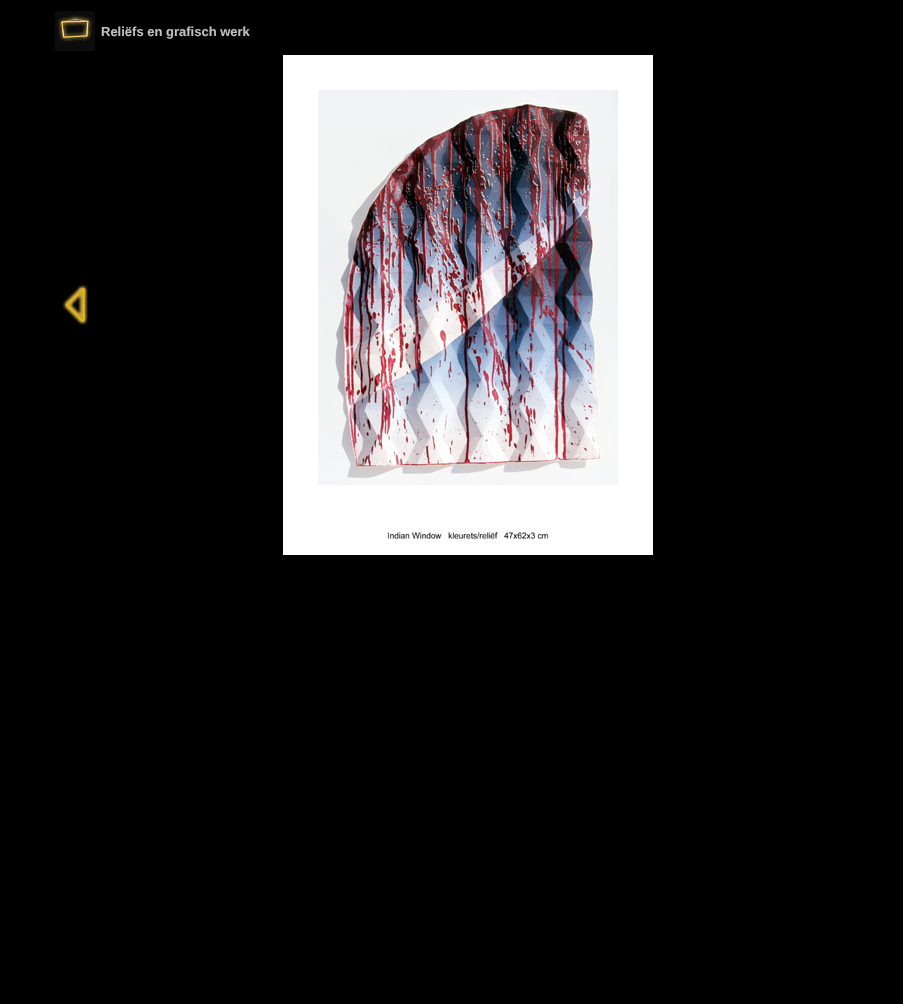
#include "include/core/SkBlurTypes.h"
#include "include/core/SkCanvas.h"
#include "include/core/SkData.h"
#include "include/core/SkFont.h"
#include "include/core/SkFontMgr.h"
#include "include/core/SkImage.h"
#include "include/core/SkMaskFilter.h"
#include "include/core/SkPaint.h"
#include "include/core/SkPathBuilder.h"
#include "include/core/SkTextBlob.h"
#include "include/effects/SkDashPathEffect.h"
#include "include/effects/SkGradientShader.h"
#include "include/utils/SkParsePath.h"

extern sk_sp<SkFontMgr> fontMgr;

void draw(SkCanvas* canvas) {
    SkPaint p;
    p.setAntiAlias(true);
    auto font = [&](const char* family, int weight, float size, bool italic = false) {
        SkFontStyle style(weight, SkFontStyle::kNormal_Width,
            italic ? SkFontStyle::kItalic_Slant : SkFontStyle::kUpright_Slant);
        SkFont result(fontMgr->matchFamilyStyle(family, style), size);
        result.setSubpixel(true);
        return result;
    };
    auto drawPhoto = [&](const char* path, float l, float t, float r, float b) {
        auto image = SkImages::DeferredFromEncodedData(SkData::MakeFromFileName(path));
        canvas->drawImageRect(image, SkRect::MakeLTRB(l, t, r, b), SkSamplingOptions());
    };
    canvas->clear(0xFF000000);
    drawPhoto("media/1.png", 55, 11, 95, 51);
    auto font1 = font("Liberation Sans", 700, 13);
    p.setColor(0xFFC0C0C0);
    canvas->drawString("Reliëfs en grafisch werk", 101, 36, font1, p);
    drawPhoto("media/2.png", 62, 285, 88, 325);
    drawPhoto("media/3.png", 283, 55, 653, 555);
}
